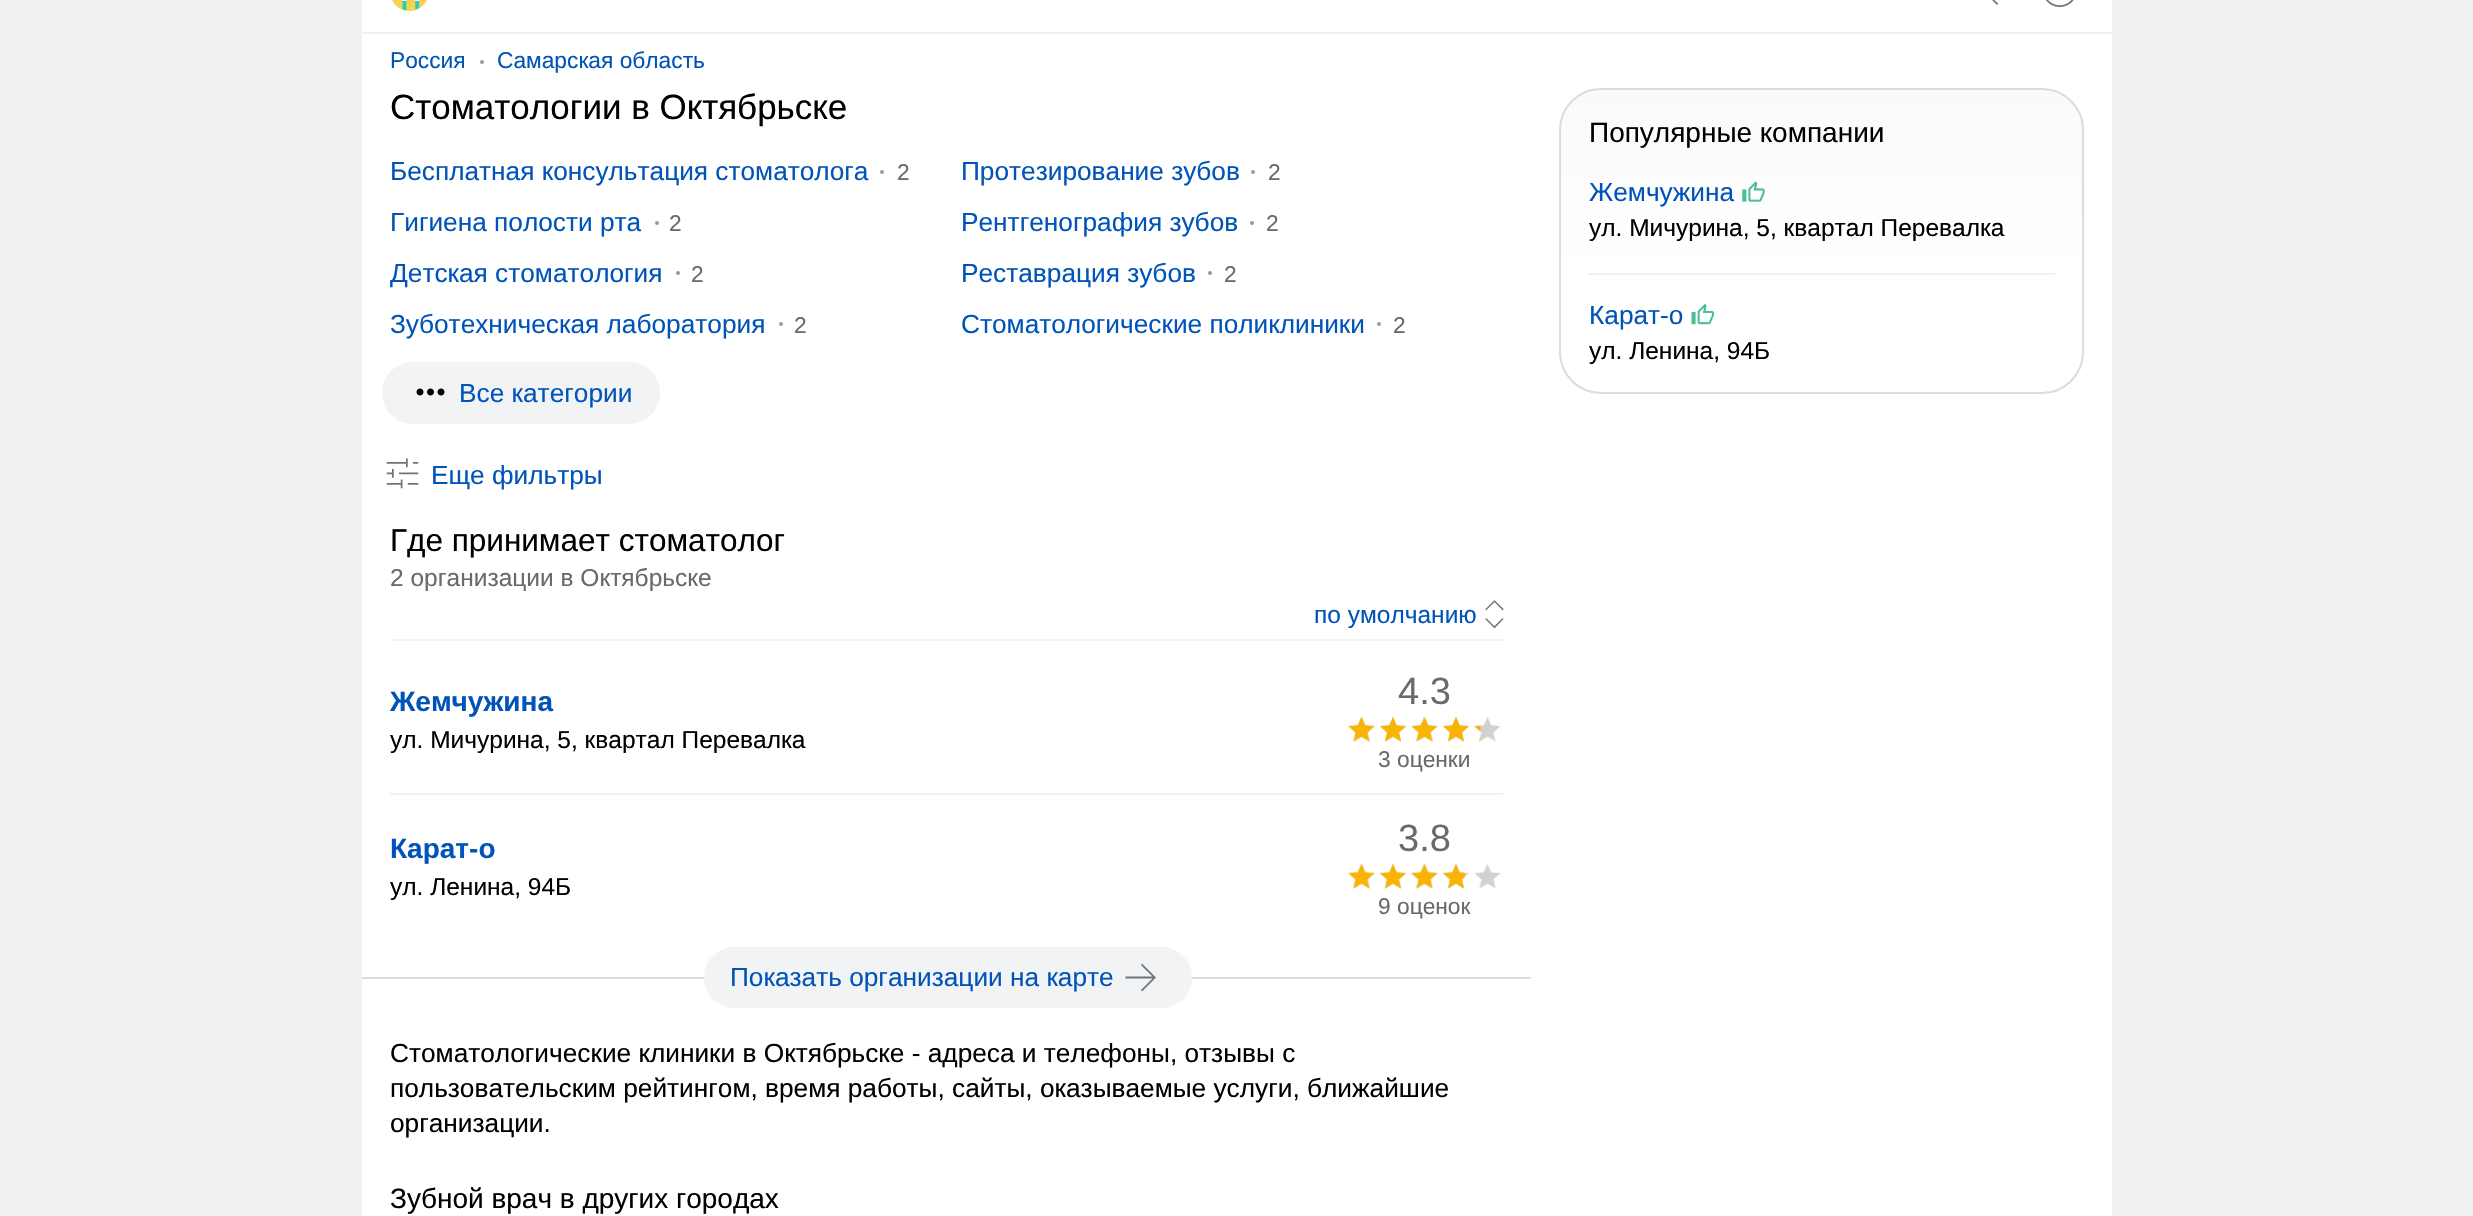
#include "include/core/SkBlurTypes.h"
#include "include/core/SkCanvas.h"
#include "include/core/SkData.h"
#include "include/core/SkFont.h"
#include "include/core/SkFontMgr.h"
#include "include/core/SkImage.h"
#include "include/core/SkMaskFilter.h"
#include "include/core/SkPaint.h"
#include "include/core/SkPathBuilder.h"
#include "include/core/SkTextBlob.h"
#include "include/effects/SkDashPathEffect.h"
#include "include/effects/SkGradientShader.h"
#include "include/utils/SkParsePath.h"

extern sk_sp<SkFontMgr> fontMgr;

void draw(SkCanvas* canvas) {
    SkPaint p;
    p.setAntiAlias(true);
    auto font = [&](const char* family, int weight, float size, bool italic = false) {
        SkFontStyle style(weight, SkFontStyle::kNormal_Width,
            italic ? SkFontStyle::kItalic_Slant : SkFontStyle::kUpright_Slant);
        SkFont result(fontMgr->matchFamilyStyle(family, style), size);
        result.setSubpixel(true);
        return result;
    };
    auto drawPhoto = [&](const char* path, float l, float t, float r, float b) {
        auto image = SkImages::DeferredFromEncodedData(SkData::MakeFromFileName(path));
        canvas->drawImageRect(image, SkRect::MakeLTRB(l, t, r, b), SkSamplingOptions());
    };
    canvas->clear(0xFFF1F1F1);
    {
        const SkColor colors[] = {0xFFECEFF1, 0xFFFFFFFF};
        const float stops[] = {0, 0.6f};
        const SkPoint ends[] = {{1237, -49}, {1237, 32}};
        p.setShader(SkGradientShader::MakeLinear(ends, colors, stops, 2, SkTileMode::kClamp));
        p.setAlpha(255);
    }
    canvas->drawRect(SkRect::MakeLTRB(362, 0, 2112, 32), p);
    drawPhoto("media/1.png", 392, 0, 427, 11);
    drawPhoto("media/2.png", 1992, 0, 1999, 5);
    drawPhoto("media/3.png", 2045, 0, 2074, 7);
    p.setShader(nullptr);
    p.setColor(0xFFFFFFFF);
    canvas->drawRect(SkRect::MakeLTRB(362, 34, 2112, 1216), p);
    auto font1 = font("Liberation Sans", 400, 22.75f);
    p.setColor(0xFF0054B9);
    canvas->drawString("Россия", 390, 68, font1, p);
    p.setColor(0xFF999999);
    canvas->drawCircle(482, 62, 2, p);
    p.setColor(0xFF0054B9);
    canvas->drawString("Самарская область", 497, 68, font1, p);
    auto font2 = font("Liberation Sans", 400, 35);
    p.setColor(0xFF000000);
    canvas->drawString("Стоматологии в Октябрьске", 390, 119, font2, p);
    auto font3 = font("Liberation Sans", 400, 26.25f);
    p.setColor(0xFF0054B9);
    canvas->drawString("Бесплатная консультация стоматолога", 390, 180, font3, p);
    p.setColor(0xFF999999);
    canvas->drawCircle(882, 172, 2, p);
    p.setColor(0xFF6A6A6A);
    canvas->drawString("2", 897, 180, font1, p);
    p.setColor(0xFF0054B9);
    canvas->drawString("Протезирование зубов", 961, 180, font3, p);
    p.setColor(0xFF999999);
    canvas->drawCircle(1253, 172, 2, p);
    p.setColor(0xFF6A6A6A);
    canvas->drawString("2", 1268, 180, font1, p);
    p.setColor(0xFF0054B9);
    canvas->drawString("Гигиена полости рта", 390, 231, font3, p);
    p.setColor(0xFF999999);
    canvas->drawCircle(657, 223, 2, p);
    p.setColor(0xFF6A6A6A);
    canvas->drawString("2", 669, 231, font1, p);
    p.setColor(0xFF0054B9);
    canvas->drawString("Рентгенография зубов", 961, 231, font3, p);
    p.setColor(0xFF999999);
    canvas->drawCircle(1252, 223, 2, p);
    p.setColor(0xFF6A6A6A);
    canvas->drawString("2", 1266, 231, font1, p);
    p.setColor(0xFF0054B9);
    canvas->drawString("Детская стоматология", 390, 282, font3, p);
    p.setColor(0xFF999999);
    canvas->drawCircle(678, 273, 2, p);
    p.setColor(0xFF6A6A6A);
    canvas->drawString("2", 691, 282, font1, p);
    p.setColor(0xFF0054B9);
    canvas->drawString("Реставрация зубов", 961, 282, font3, p);
    p.setColor(0xFF999999);
    canvas->drawCircle(1210, 273, 2, p);
    p.setColor(0xFF6A6A6A);
    canvas->drawString("2", 1224, 282, font1, p);
    p.setColor(0xFF0054B9);
    canvas->drawString("Зуботехническая лаборатория", 390, 333, font3, p);
    p.setColor(0xFF999999);
    canvas->drawCircle(781, 324, 2, p);
    p.setColor(0xFF6A6A6A);
    canvas->drawString("2", 794, 333, font1, p);
    p.setColor(0xFF0054B9);
    canvas->drawString("Стоматологические поликлиники", 961, 333, font3, p);
    p.setColor(0xFF999999);
    canvas->drawCircle(1379, 324, 2, p);
    p.setColor(0xFF6A6A6A);
    canvas->drawString("2", 1393, 333, font1, p);
    p.setColor(0xFFF1F3F4);
    canvas->drawRoundRect(SkRect::MakeLTRB(382, 362, 660, 424), 31, 31, p);
    drawPhoto("media/4.png", 416, 388, 445, 396);
    p.setColor(0xFF0054B9);
    canvas->drawString("Все категории", 459, 402, font3, p);
    drawPhoto("media/5.png", 386, 458, 419, 489);
    canvas->drawString("Еще фильтры", 431, 484, font3, p);
    auto font4 = font("Liberation Sans", 400, 31.5f);
    p.setColor(0xFF000000);
    canvas->drawString("Где принимает стоматолог", 390, 551, font4, p);
    auto font5 = font("Liberation Sans", 400, 24.5f);
    p.setColor(0xFF6A6A6A);
    canvas->drawString("2 организации в Октябрьске", 390, 586, font5, p);
    p.setColor(0xFFF1F1F1);
    canvas->drawRect(SkRect::MakeLTRB(390, 639, 1503, 641), p);
    p.setColor(0xFF0054B9);
    canvas->drawString("по умолчанию", 1314, 623, font5, p);
    drawPhoto("media/6.png", 1485, 600, 1504, 629);
    auto font6 = font("Liberation Sans", 700, 28);
    canvas->drawString("Жемчужина", 390, 711, font6, p);
    p.setColor(0xFF000000);
    canvas->drawString("ул. Мичурина, 5, квартал Перевалка", 390, 748, font5, p);
    auto font7 = font("Liberation Sans", 400, 38);
    p.setColor(0xFF6A6A6A);
    canvas->drawString("4.3", 1398, 704, font7, p);
    drawPhoto("media/8.png", 1348, 717, 1501, 742);
    drawPhoto("media/7.png", 1348, 716, 1481, 742);
    canvas->drawString("3 оценки", 1378, 767, font1, p);
    p.setColor(0xFFF1F1F1);
    canvas->drawRect(SkRect::MakeLTRB(390, 793, 1503, 795), p);
    p.setColor(0xFF0054B9);
    canvas->drawString("Карат-о", 390, 858, font6, p);
    p.setColor(0xFF000000);
    canvas->drawString("ул. Ленина, 94Б", 390, 895, font5, p);
    p.setColor(0xFF6A6A6A);
    canvas->drawString("3.8", 1398, 851, font7, p);
    drawPhoto("media/10.png", 1348, 864, 1501, 889);
    drawPhoto("media/9.png", 1348, 863, 1465, 889);
    canvas->drawString("9 оценок", 1378, 914, font1, p);
    p.setColor(0xFFDADCE0);
    canvas->drawRect(SkRect::MakeLTRB(362, 977, 1531, 979), p);
    p.setColor(0xFFF1F3F4);
    canvas->drawRoundRect(SkRect::MakeLTRB(704, 947, 1192, 1008), 30.5f, 30.5f, p);
    p.setColor(0xFF0054B9);
    canvas->drawString("Показать организации на карте", 730, 986, font3, p);
    p.setColor(0xFF70757A);
    canvas->drawPath(SkPathBuilder().moveTo(1125.5f, 978.5f).lineTo(1125.5f, 976.5f).lineTo(1152.5f, 976.5f).lineTo(1141, 965).lineTo(1142, 963.5f).lineTo(1156, 977.5f).lineTo(1142, 991.5f).lineTo(1141, 990).lineTo(1152.5f, 978.5f).close().detach(), p);
    p.setColor(0xFF000000);
    {
        const struct { const char* s; float x, y; } items[] = {
            {"Стоматологические клиники в Октябрьске - адреса и телефоны, отзывы с", 390, 1062},
            {"пользовательским рейтингом, время работы, сайты, оказываемые услуги, ближайшие", 390, 1097},
            {"организации.", 390, 1132},
        };
        for (auto [s, x, y] : items) {
            canvas->drawString(s, x, y, font3, p);
        }
    }
    auto font8 = font("Liberation Sans", 400, 28);
    canvas->drawString("Зубной врач в других городах", 390, 1208, font8, p);
    canvas->save();
    canvas->clipPath(SkPathBuilder().moveTo(1601, 88).lineTo(2042, 88).cubicTo(2065, 88, 2084, 107, 2084, 130).lineTo(2084, 352).cubicTo(2084, 375, 2065, 394, 2042, 394).lineTo(1601, 394).cubicTo(1578, 394, 1559, 375, 1559, 352).lineTo(1559, 130).cubicTo(1559, 107, 1578, 88, 1601, 88).close().detach(), true);
    {
        const SkColor colors[] = {0xFFFAFAFA, 0xFFFFFFFF};
        const float stops[] = {0, 0.6f};
        const SkPoint ends[] = {{1822, 89}, {1822, 392}};
        p.setShader(SkGradientShader::MakeLinear(ends, colors, stops, 2, SkTileMode::kClamp));
        p.setAlpha(255);
    }
    canvas->drawRect(SkRect::MakeLTRB(1559, 89, 2084, 392), p);
    canvas->restore();
    p.setStyle(SkPaint::kStroke_Style);
    p.setStrokeWidth(2);
    p.setShader(nullptr);
    p.setColor(0xFFDADCE0);
    canvas->drawRoundRect(SkRect::MakeLTRB(1560, 89, 2083, 393), 41, 41, p);
    p.setStyle(SkPaint::kFill_Style);
    p.setColor(0xFF000000);
    canvas->drawString("Популярные компании", 1589, 142, font8, p);
    p.setColor(0xFF0054B9);
    canvas->drawString("Жемчужина", 1589, 201, font3, p);
    drawPhoto("media/11.png", 1742, 181, 1765, 202);
    p.setColor(0xFF000000);
    canvas->drawString("ул. Мичурина, 5, квартал Перевалка", 1589, 236, font5, p);
    p.setColor(0xFFF1F1F1);
    canvas->drawRect(SkRect::MakeLTRB(1589, 273, 2055, 275), p);
    p.setColor(0xFF0054B9);
    canvas->drawString("Карат-о", 1589, 324, font3, p);
    drawPhoto("media/12.png", 1691, 303, 1714, 325);
    p.setColor(0xFF000000);
    canvas->drawString("ул. Ленина, 94Б", 1589, 359, font5, p);
}
